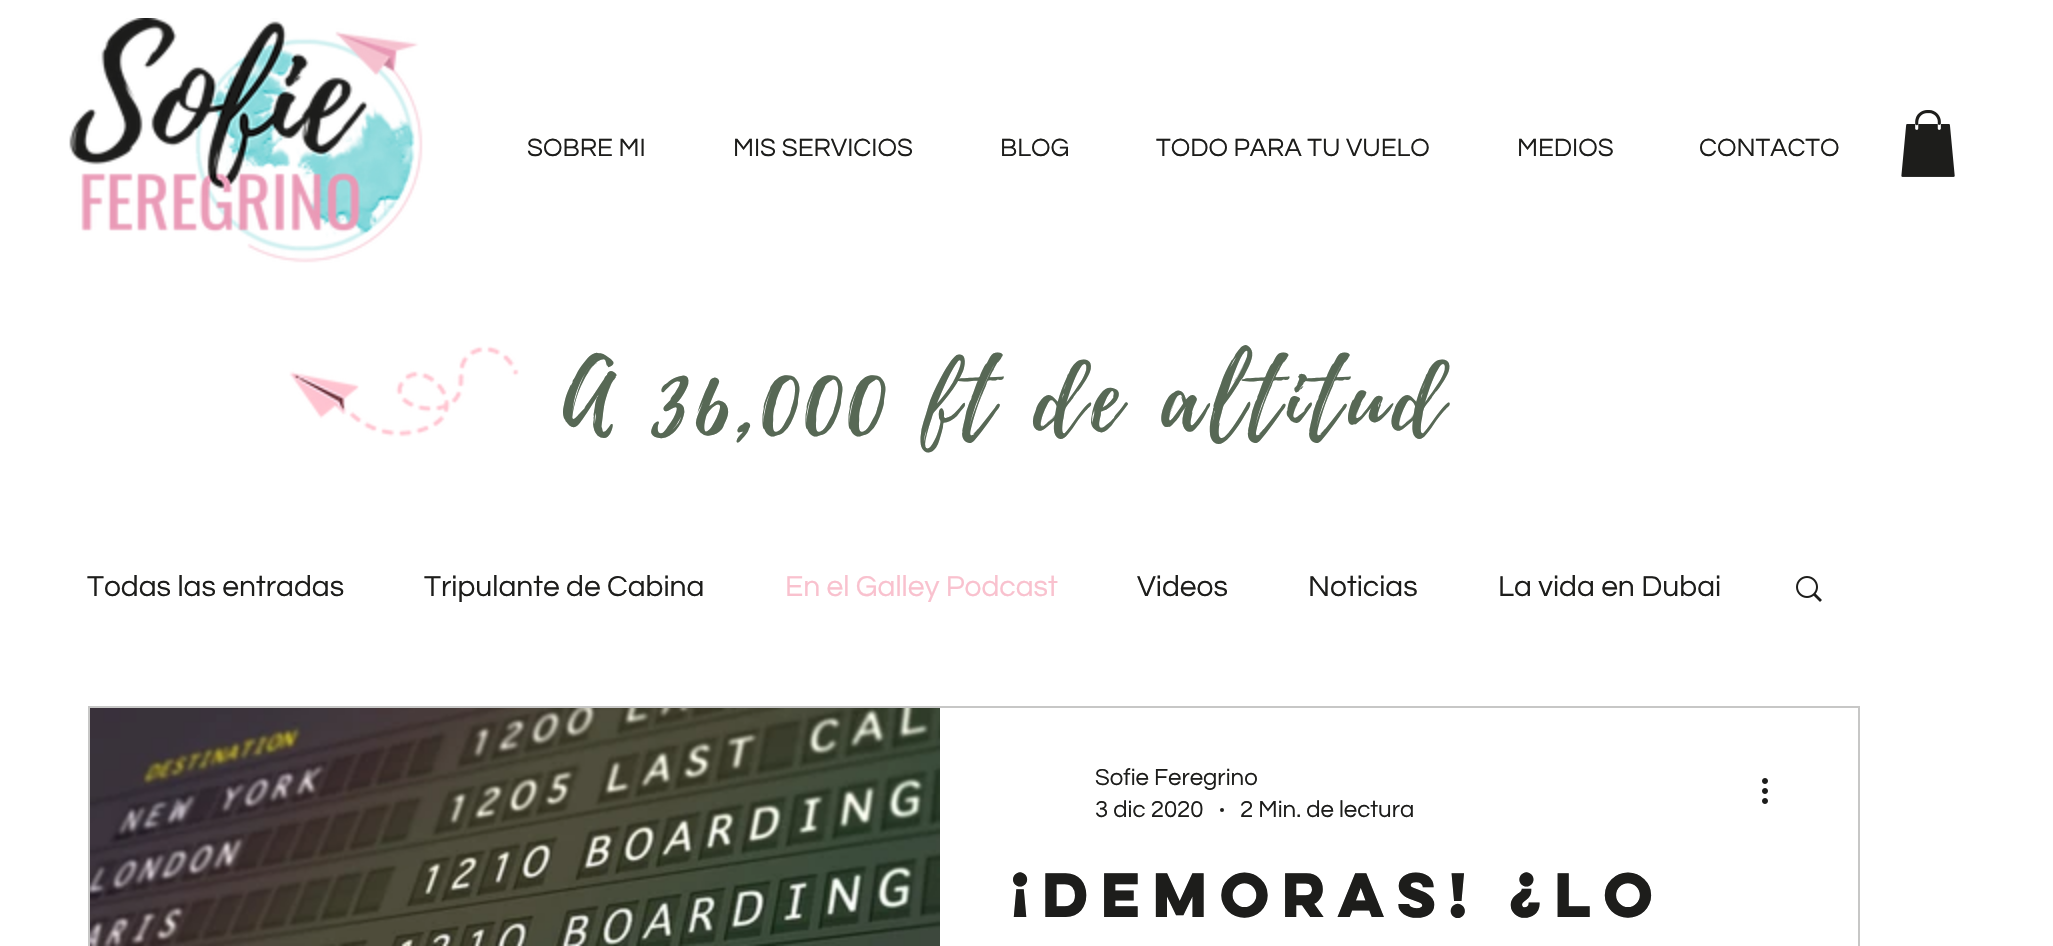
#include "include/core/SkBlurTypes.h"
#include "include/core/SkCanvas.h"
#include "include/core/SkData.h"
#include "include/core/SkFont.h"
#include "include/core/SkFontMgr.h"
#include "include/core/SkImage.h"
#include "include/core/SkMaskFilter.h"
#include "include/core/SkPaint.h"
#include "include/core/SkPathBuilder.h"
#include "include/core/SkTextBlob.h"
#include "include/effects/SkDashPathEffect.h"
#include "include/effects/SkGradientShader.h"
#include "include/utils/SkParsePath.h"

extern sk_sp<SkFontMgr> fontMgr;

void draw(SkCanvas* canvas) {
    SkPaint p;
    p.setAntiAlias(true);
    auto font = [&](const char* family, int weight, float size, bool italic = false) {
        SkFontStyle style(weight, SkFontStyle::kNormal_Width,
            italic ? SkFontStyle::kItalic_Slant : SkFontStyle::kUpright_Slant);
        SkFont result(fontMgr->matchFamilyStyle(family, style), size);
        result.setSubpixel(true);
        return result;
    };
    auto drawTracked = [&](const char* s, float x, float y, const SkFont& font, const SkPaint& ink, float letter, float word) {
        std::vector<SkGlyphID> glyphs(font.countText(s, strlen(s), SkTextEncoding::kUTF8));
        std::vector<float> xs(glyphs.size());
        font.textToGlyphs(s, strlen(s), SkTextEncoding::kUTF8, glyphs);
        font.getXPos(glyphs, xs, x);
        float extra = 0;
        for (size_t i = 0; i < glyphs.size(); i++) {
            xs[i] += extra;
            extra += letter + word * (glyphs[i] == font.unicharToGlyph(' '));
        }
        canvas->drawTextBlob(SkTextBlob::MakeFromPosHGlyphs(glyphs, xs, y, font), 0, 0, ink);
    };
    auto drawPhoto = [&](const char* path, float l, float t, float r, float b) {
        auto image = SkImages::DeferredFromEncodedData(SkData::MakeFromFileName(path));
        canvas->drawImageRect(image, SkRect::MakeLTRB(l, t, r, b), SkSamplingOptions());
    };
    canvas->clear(0xFFFFFFFF);
    drawPhoto("media/1.png", 69, 18, 423, 263);
    auto font1 = font("Questrial", 400, 26);
    p.setColor(0xFF1D1D1B);
    {
        const struct { const char* s; float x, y; } items[] = {
            {"SOBRE MI", 527, 156},
            {"MIS SERVICIOS", 733, 156},
            {"BLOG", 1000, 156},
            {"TODO PARA TU VUELO", 1156, 156},
            {"MEDIOS", 1517, 156},
            {"CONTACTO", 1699, 156},
        };
        for (auto [s, x, y] : items) {
            canvas->drawString(s, x, y, font1, p);
        }
    }
    drawPhoto("media/2.png", 1901, 110, 1955, 177);
    drawPhoto("media/3.png", 289, 346, 519, 437);
    auto font2 = font("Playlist", 400, 96);
    p.setColor(0xFF576855);
    drawTracked("A 36,000 ft de altitud", 563, 427, font2, p, 6.75f, 0);
    auto font3 = font("Questrial", 400, 30);
    p.setColor(0xFF1D1D1B);
    canvas->drawString("Todas las entradas", 87, 596, font3, p);
    canvas->drawString("Tripulante de Cabina", 424, 596, font3, p);
    p.setColor(0xFFF9C1CE);
    canvas->drawString("En el Galley Podcast", 785, 596, font3, p);
    p.setColor(0xFF1D1D1B);
    {
        const struct { const char* s; float x, y; } items[] = {
            {"Videos", 1137, 596},
            {"Noticias", 1308, 596},
            {"La vida en Dubai", 1498, 596},
        };
        for (auto [s, x, y] : items) {
            canvas->drawString(s, x, y, font3, p);
        }
    }
    drawPhoto("media/4.png", 1796, 576, 1822, 602);
    p.setStyle(SkPaint::kStroke_Style);
    p.setStrokeWidth(2);
    p.setColor(0xFFC7C7C6);
    canvas->drawRect(SkRect::MakeLTRB(89, 707, 1859, 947), p);
    drawPhoto("media/5.png", 90, 708, 940, 946);
    auto font4 = font("Questrial", 400, 24);
    p.setStyle(SkPaint::kFill_Style);
    p.setColor(0xFF1D1D1B);
    canvas->drawString("Sofie Feregrino", 1095, 785, font4, p);
    canvas->drawString("3 dic 2020", 1095, 817, font4, p);
    canvas->drawCircle(1222, 810, 2, p);
    canvas->drawString("2 Min. de lectura", 1240, 817, font4, p);
    drawPhoto("media/6.png", 1762, 778, 1768, 804);
    auto font5 = font("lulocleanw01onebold", 700, 56);
    canvas->drawString("¡Demoras! ¿Lo", 1011, 917, font5, p);
}
